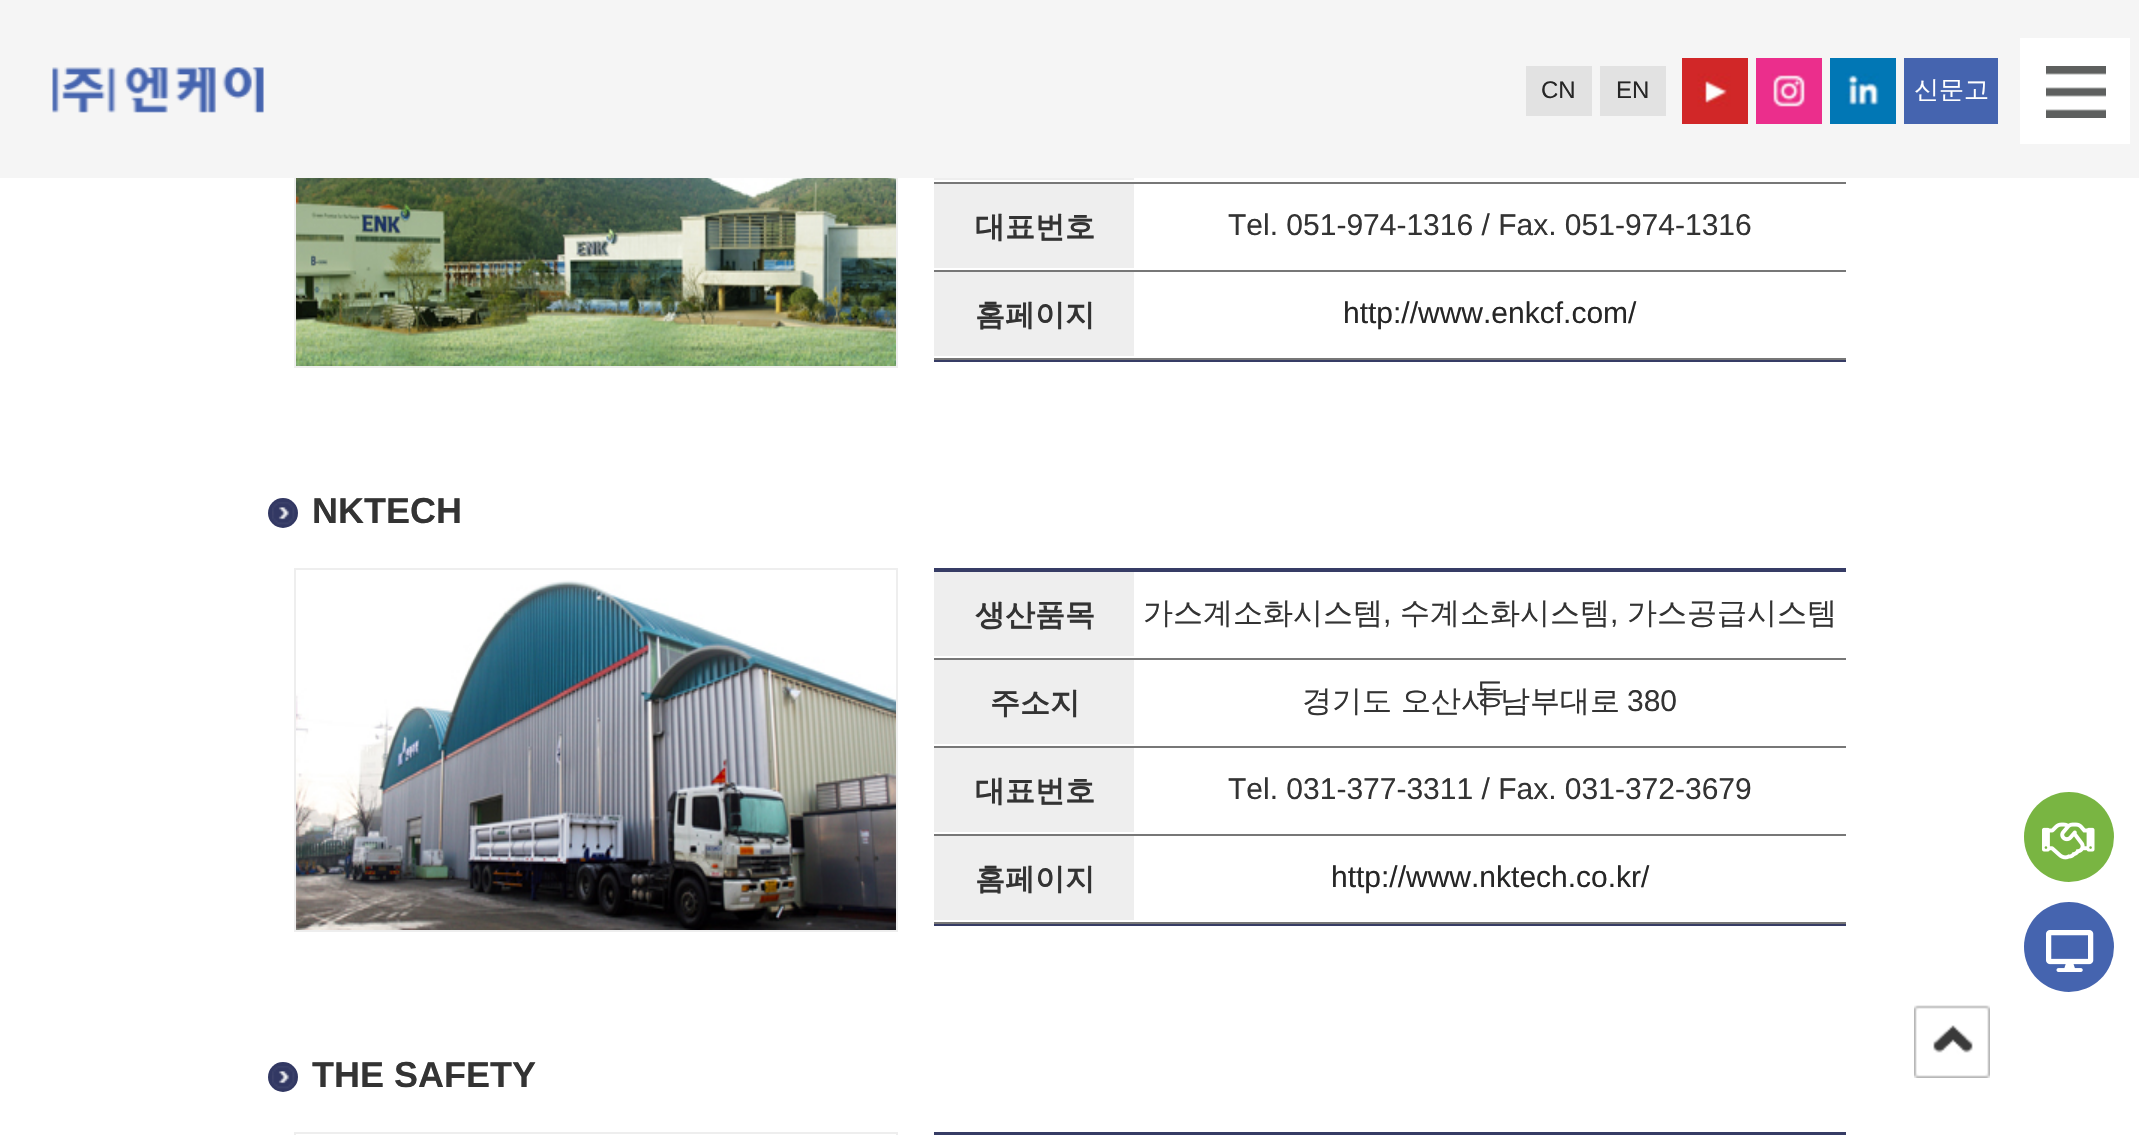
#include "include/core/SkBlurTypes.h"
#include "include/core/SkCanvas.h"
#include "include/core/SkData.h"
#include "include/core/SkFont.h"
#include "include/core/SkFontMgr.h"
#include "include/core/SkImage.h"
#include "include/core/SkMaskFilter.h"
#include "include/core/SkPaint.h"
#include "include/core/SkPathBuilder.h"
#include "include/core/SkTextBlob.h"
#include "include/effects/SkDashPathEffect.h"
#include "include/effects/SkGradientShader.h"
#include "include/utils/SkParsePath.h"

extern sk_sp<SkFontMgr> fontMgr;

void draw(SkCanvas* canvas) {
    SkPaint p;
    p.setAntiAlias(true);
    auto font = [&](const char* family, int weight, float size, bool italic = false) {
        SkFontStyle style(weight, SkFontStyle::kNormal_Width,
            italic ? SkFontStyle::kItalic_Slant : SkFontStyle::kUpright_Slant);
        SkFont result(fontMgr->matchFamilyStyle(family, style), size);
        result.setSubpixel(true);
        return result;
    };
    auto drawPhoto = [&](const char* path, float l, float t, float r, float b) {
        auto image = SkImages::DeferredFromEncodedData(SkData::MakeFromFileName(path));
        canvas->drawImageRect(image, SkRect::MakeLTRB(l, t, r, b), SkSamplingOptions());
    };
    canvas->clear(0xFFFFFFFF);
    p.setStyle(SkPaint::kStroke_Style);
    p.setStrokeWidth(2);
    p.setColor(0xFFEEEEEE);
    canvas->drawRect(SkRect::MakeLTRB(295, 5, 897, 367), p);
    p.setStyle(SkPaint::kFill_Style);
    p.setColor(0xFFF5F5F5);
    canvas->drawRect(SkRect::MakeLTRB(0, 0, 2139, 178), p);
    drawPhoto("media/1.png", 52, 67, 264, 113);
    p.setColor(0xFFE2E2E2);
    canvas->drawRect(SkRect::MakeLTRB(1526, 66, 1592, 116), p);
    auto font1 = font("Liberation Sans", 400, 24);
    p.setColor(0xFF262626);
    canvas->drawString("CN", 1541, 98, font1, p);
    p.setColor(0xFFE2E2E2);
    canvas->drawRect(SkRect::MakeLTRB(1600, 66, 1666, 116), p);
    p.setColor(0xFF262626);
    canvas->drawString("EN", 1616, 98, font1, p);
    drawPhoto("media/2.png", 1682, 58, 1748, 124);
    drawPhoto("media/3.png", 1756, 58, 1822, 124);
    drawPhoto("media/4.png", 1830, 58, 1896, 124);
    p.setColor(0xFF4564AF);
    canvas->drawRect(SkRect::MakeLTRB(1904, 58, 1998, 124), p);
    auto font2 = font("WenQuanYi Zen Hei", 500, 25);
    p.setColor(0xFFFFFFFF);
    canvas->drawString("신문고", 1914, 98, font2, p);
    canvas->drawRect(SkRect::MakeLTRB(2020, 38, 2130, 144), p);
    drawPhoto("media/5.png", 2046, 66, 2106, 118);
    drawPhoto("media/6.png", 296, 178, 896, 366);
    {
        const struct { float l, t, r, b; SkColor color; } items[] = {
            {934, 360, 1846, 362, 0xFF363C65},
            {934, 178, 1134, 180, 0xFFEEEEEE},
            {934, 182, 1846, 184, 0xFF777777},
            {934, 184, 1134, 268, 0xFFEEEEEE},
        };
        for (auto [l, t, r, b, color] : items) {
            p.setColor(color);
            canvas->drawRect(SkRect::MakeLTRB(l, t, r, b), p);
        }
    }
    auto font3 = font("WenQuanYi Zen Hei", 700, 30);
    p.setColor(0xFF333333);
    canvas->drawString("대표번호", 975, 237, font3, p);
    p.setColor(0xFF777777);
    canvas->drawRect(SkRect::MakeLTRB(934, 270, 1846, 272), p);
    auto font4 = font("Liberation Sans", 400, 30);
    p.setColor(0xFF333333);
    canvas->drawString("Tel. 051-974-1316 / Fax. 051-974-1316", 1228, 235, font4, p);
    p.setColor(0xFFEEEEEE);
    canvas->drawRect(SkRect::MakeLTRB(934, 272, 1134, 356), p);
    p.setColor(0xFF333333);
    canvas->drawString("홈페이지", 975, 325, font3, p);
    p.setColor(0xFF777777);
    canvas->drawRect(SkRect::MakeLTRB(934, 358, 1846, 360), p);
    p.setColor(0xFF262626);
    canvas->drawString("http://www.enkcf.com/", 1343, 323, font4, p);
    p.setColor(0xFF323863);
    canvas->drawCircle(283, 513, 15, p);
    drawPhoto("media/7.png", 272, 502, 295, 525);
    auto font5 = font("Liberation Sans", 700, 36);
    p.setColor(0xFF333333);
    canvas->drawString("NKTECH", 312, 523, font5, p);
    p.setStyle(SkPaint::kStroke_Style);
    p.setColor(0xFFEEEEEE);
    canvas->drawRect(SkRect::MakeLTRB(295, 569, 897, 931), p);
    drawPhoto("media/8.png", 296, 580, 896, 930);
    p.setStyle(SkPaint::kFill_Style);
    {
        const struct { float l, t, r, b; SkColor color; } items[] = {
            {934, 568, 1846, 572, 0xFF363C65},
            {934, 924, 1846, 926, 0xFF363C65},
            {934, 572, 1134, 656, 0xFFEEEEEE},
        };
        for (auto [l, t, r, b, color] : items) {
            p.setColor(color);
            canvas->drawRect(SkRect::MakeLTRB(l, t, r, b), p);
        }
    }
    p.setColor(0xFF333333);
    canvas->drawString("생산품목", 975, 625, font3, p);
    p.setColor(0xFF777777);
    canvas->drawRect(SkRect::MakeLTRB(934, 658, 1846, 660), p);
    auto font6 = font("WenQuanYi Zen Hei", 500, 30);
    p.setColor(0xFF333333);
    canvas->drawString("가스계소화시스템", 1143, 623, font6, p);
    canvas->drawString(",", 1383, 623, font4, p);
    canvas->drawString("수계소화시스템", 1400, 623, font6, p);
    canvas->drawString(",", 1610, 623, font4, p);
    canvas->drawString("가스공급시스템", 1627, 623, font6, p);
    canvas->drawString("등", 1475, 703, font6, p);
    p.setColor(0xFFEEEEEE);
    canvas->drawRect(SkRect::MakeLTRB(934, 660, 1134, 744), p);
    p.setColor(0xFF333333);
    canvas->drawString("주소지", 990, 713, font3, p);
    p.setColor(0xFF777777);
    canvas->drawRect(SkRect::MakeLTRB(934, 746, 1846, 748), p);
    p.setColor(0xFF333333);
    canvas->drawString("경기도 오산시 남부대로", 1302, 711, font6, p);
    canvas->drawString("380", 1627, 711, font4, p);
    p.setColor(0xFFEEEEEE);
    canvas->drawRect(SkRect::MakeLTRB(934, 748, 1134, 832), p);
    p.setColor(0xFF333333);
    canvas->drawString("대표번호", 975, 801, font3, p);
    p.setColor(0xFF777777);
    canvas->drawRect(SkRect::MakeLTRB(934, 834, 1846, 836), p);
    p.setColor(0xFF333333);
    canvas->drawString("Tel. 031-377-3311 / Fax. 031-372-3679", 1228, 799, font4, p);
    p.setColor(0xFFEEEEEE);
    canvas->drawRect(SkRect::MakeLTRB(934, 836, 1134, 920), p);
    p.setColor(0xFF333333);
    canvas->drawString("홈페이지", 975, 889, font3, p);
    p.setColor(0xFF777777);
    canvas->drawRect(SkRect::MakeLTRB(934, 922, 1846, 924), p);
    p.setColor(0xFF262626);
    canvas->drawString("http://www.nktech.co.kr/", 1331, 887, font4, p);
    p.setColor(0xFF323863);
    canvas->drawCircle(283, 1077, 15, p);
    drawPhoto("media/7.png", 272, 1066, 295, 1089);
    p.setColor(0xFF333333);
    canvas->drawString("THE SAFETY", 312, 1087, font5, p);
    p.setStyle(SkPaint::kStroke_Style);
    p.setColor(0xFFEEEEEE);
    canvas->drawRect(SkRect::MakeLTRB(295, 1133, 897, 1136), p);
    p.setStyle(SkPaint::kFill_Style);
    p.setColor(0xFF363C65);
    canvas->drawRect(SkRect::MakeLTRB(934, 1132, 1846, 1135), p);
    p.setColor(0xFF79B542);
    canvas->drawCircle(2069, 837, 45, p);
    drawPhoto("media/9.png", 2042, 822, 2095, 860);
    p.setColor(0xFF4564AF);
    canvas->drawCircle(2069, 947, 45, p);
    drawPhoto("media/10.png", 2046, 930, 2094, 972);
    drawPhoto("media/11.png", 1914, 1005, 1990, 1078);
}
